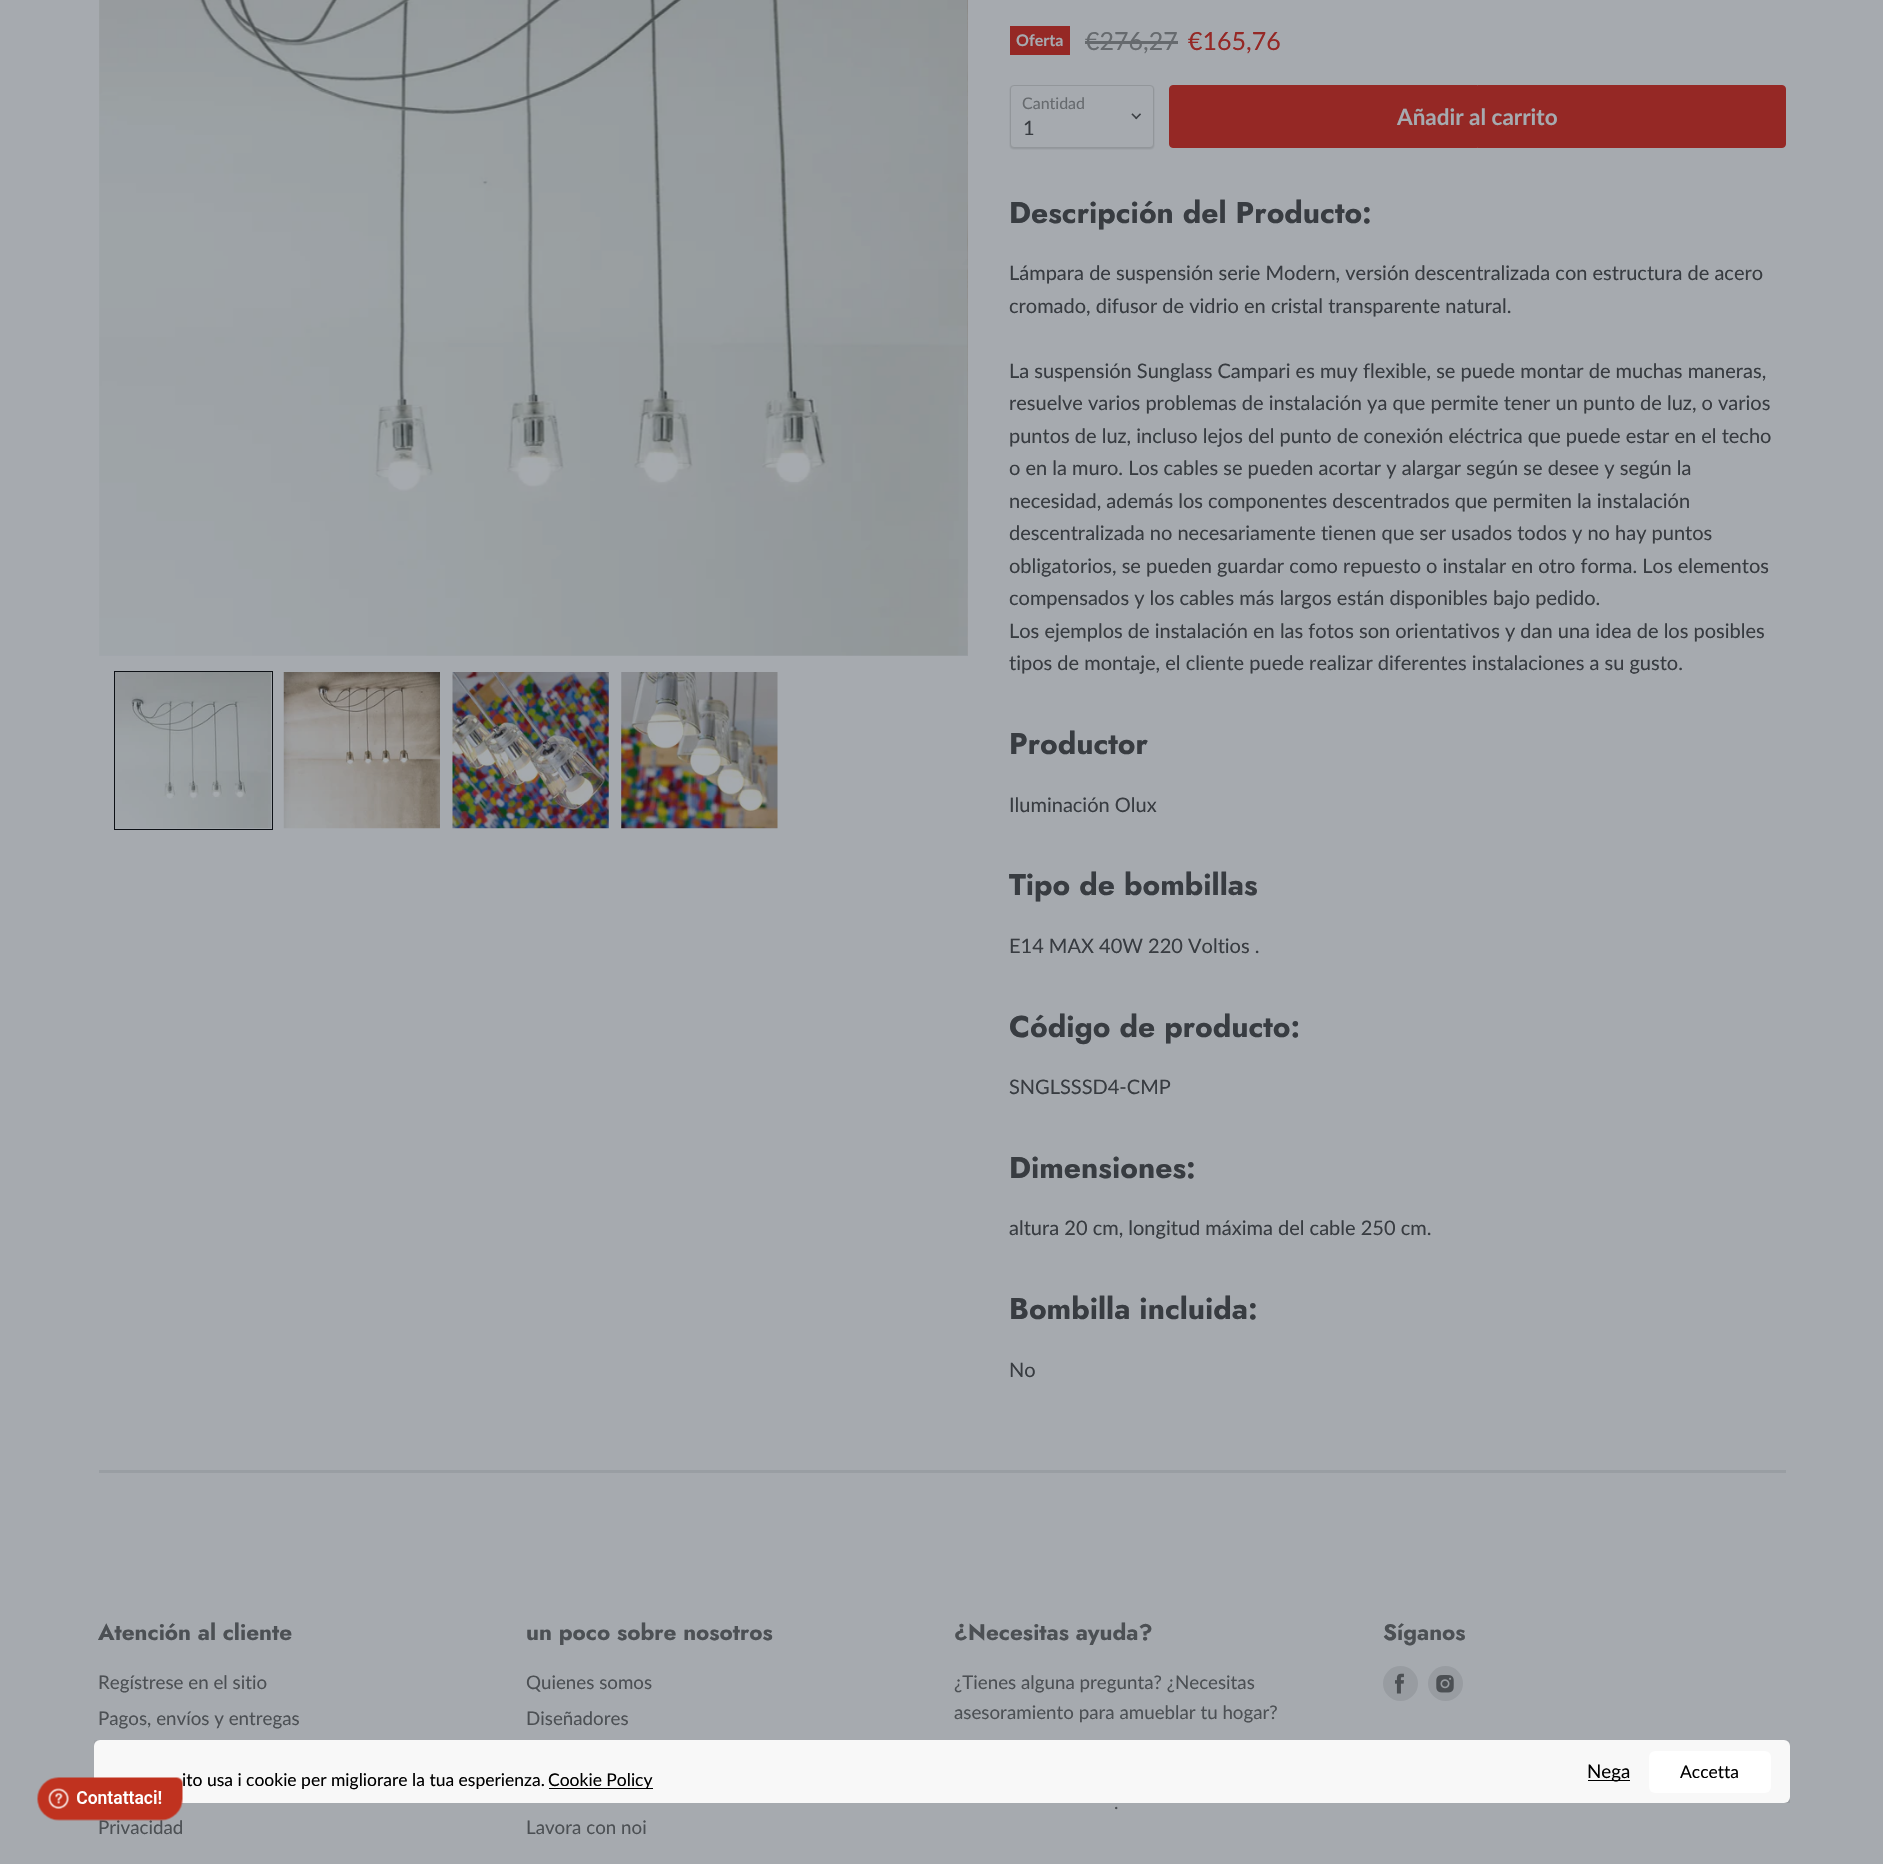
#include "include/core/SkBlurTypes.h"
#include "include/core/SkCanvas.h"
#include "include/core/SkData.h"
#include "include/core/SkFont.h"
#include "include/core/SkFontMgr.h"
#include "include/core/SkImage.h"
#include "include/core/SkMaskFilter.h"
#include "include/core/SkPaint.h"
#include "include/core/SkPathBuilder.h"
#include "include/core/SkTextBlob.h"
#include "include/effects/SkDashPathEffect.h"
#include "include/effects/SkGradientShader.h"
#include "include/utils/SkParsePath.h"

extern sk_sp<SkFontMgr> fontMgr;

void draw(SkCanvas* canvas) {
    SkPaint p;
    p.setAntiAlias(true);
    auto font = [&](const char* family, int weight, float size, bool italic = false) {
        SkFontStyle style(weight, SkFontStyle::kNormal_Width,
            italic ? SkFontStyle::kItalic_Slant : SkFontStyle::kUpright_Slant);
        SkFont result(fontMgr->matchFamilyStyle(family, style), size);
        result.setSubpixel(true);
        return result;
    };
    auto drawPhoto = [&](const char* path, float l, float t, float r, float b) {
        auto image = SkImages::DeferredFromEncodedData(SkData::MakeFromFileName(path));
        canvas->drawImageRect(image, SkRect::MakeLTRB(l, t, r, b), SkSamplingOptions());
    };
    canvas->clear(0xFFA6AAAF);
    drawPhoto("media/1.png", 99, 0, 968, 656);
    drawPhoto("media/2.png", 967, 0, 968, 655);
    p.setStyle(SkPaint::kStroke_Style);
    p.setStrokeWidth(1);
    p.setColor(0xFF0D1116);
    canvas->drawRect(SkRect::MakeLTRB(114.5f, 671.5f, 272.5f, 829.5f), p);
    drawPhoto("media/3.png", 115, 672, 272, 829);
    drawPhoto("media/4.png", 283, 672, 440, 829);
    drawPhoto("media/5.png", 452, 672, 609, 829);
    drawPhoto("media/6.png", 621, 672, 778, 829);
    p.setStyle(SkPaint::kFill_Style);
    p.setColor(0xFF952825);
    canvas->drawRect(SkRect::MakeLTRB(1010, 26, 1070, 55), p);
    auto font1 = font("Lato", 700, 16);
    p.setColor(0xFFA6AAAF);
    canvas->drawString("Oferta", 1016, 46, font1, p);
    auto font2 = font("Lato", 400, 25);
    p.setColor(0xFF666A6E);
    canvas->drawString("€276,27", 1085, 50, font2, p);
    canvas->drawRect(SkRect::MakeLTRB(1085, 41, 1178, 44), p);
    p.setColor(0xFF952825);
    canvas->drawString("€165,76", 1188, 50, font2, p);
    p.setColor(0x260D1116);
    p.setMaskFilter(SkMaskFilter::MakeBlur(kNormal_SkBlurStyle, 1));
    canvas->drawRoundRect(SkRect::MakeLTRB(1010, 86, 1154, 149), 4, 4, p);
    p.setMaskFilter(nullptr);
    p.setColor(0xFFA6AAAF);
    canvas->drawRoundRect(SkRect::MakeLTRB(1010.5f, 85.5f, 1153.5f, 147.5f), 3.5f, 3.5f, p);
    p.setStyle(SkPaint::kStroke_Style);
    p.setColor(0xFF92969A);
    canvas->drawRoundRect(SkRect::MakeLTRB(1010.5f, 85.5f, 1153.5f, 147.5f), 3.5f, 3.5f, p);
    auto font3 = font("Lato", 400, 16);
    p.setStyle(SkPaint::kFill_Style);
    p.setColor(0xFF666A6E);
    canvas->drawString("Cantidad", 1022, 109, font3, p);
    drawPhoto("media/7.png", 1131, 113, 1141, 120);
    auto font4 = font("Lato", 400, 20);
    p.setColor(0xFF383C41);
    canvas->drawString("1", 1023, 135, font4, p);
    p.setColor(0xFF952825);
    canvas->drawRoundRect(SkRect::MakeLTRB(1169.5f, 85.5f, 1785.5f, 147.5f), 3.5f, 3.5f, p);
    p.setStyle(SkPaint::kStroke_Style);
    canvas->drawRoundRect(SkRect::MakeLTRB(1169.5f, 85.5f, 1785.5f, 147.5f), 3.5f, 3.5f, p);
    auto font5 = font("Lato", 700, 22.5f);
    p.setStyle(SkPaint::kFill_Style);
    p.setColor(0xFFA6AAAF);
    canvas->drawString("Añadir al carrito", 1397, 125, font5, p);
    auto font6 = font("Jost", 700, 30);
    p.setColor(0xFF383C41);
    canvas->drawString("Descripción del Producto:", 1009, 223, font6, p);
    {
        const struct { const char* s; float x, y; } items[] = {
            {"Lámpara de suspensión serie Modern, versión descentralizada con estructura de acero", 1009, 280},
            {"cromado, difusor de vidrio en cristal transparente natural.", 1009, 313},
            {"La suspensión Sunglass Campari es muy flexible, se puede montar de muchas maneras,", 1009, 378},
            {"resuelve varios problemas de instalación ya que permite tener un punto de luz, o varios", 1009, 410},
            {"puntos de luz, incluso lejos del punto de conexión eléctrica que puede estar en el techo", 1009, 443},
            {"o en la muro. Los cables se pueden acortar y alargar según se desee y según la", 1009, 475},
            {"necesidad, además los componentes descentrados que permiten la instalación", 1009, 508},
            {"descentralizada no necesariamente tienen que ser usados todos y no hay puntos", 1009, 540},
            {"obligatorios, se pueden guardar como repuesto o instalar en otro forma. Los elementos", 1009, 573},
            {"compensados y los cables más largos están disponibles bajo pedido.", 1009, 605},
            {"Los ejemplos de instalación en las fotos son orientativos y dan una idea de los posibles", 1009, 638},
            {"tipos de montaje, el cliente puede realizar diferentes instalaciones a su gusto.", 1009, 670},
        };
        for (auto [s, x, y] : items) {
            canvas->drawString(s, x, y, font4, p);
        }
    }
    canvas->drawString("Productor", 1009, 754, font6, p);
    canvas->drawString("Iluminación Olux", 1009, 812, font4, p);
    canvas->drawString("Tipo de bombillas", 1009, 895, font6, p);
    canvas->drawString("E14 MAX 40W 220 Voltios .", 1009, 953, font4, p);
    canvas->drawString("Código de producto:", 1009, 1037, font6, p);
    canvas->drawString("SNGLSSSD4-CMP", 1009, 1094, font4, p);
    canvas->drawString("Dimensiones:", 1009, 1178, font6, p);
    canvas->drawString("altura 20 cm, longitud máxima del cable 250 cm.", 1009, 1235, font4, p);
    canvas->drawString("Bombilla incluida:", 1009, 1319, font6, p);
    canvas->drawString("No", 1009, 1377, font4, p);
    p.setColor(0x295A5E62);
    canvas->drawRect(SkRect::MakeLTRB(99, 1470, 1786, 1473), p);
    auto font7 = font("Jost", 700, 22.5f);
    p.setColor(0xFF4C5054);
    canvas->drawString("Atención al cliente", 98, 1640, font7, p);
    auto font8 = font("Lato", 400, 18.75f);
    {
        const struct { const char* s; float x, y; } items[] = {
            {"Regístrese en el sitio", 98, 1689},
            {"Pagos, envíos y entregas", 98, 1725},
            {"Privacidad", 98, 1834},
        };
        for (auto [s, x, y] : items) {
            canvas->drawString(s, x, y, font8, p);
        }
    }
    canvas->drawString("un poco sobre nosotros", 526, 1640, font7, p);
    {
        const struct { const char* s; float x, y; } items[] = {
            {"Quienes somos", 526, 1689},
            {"Diseñadores", 526, 1725},
            {"Lavora con noi", 526, 1834},
        };
        for (auto [s, x, y] : items) {
            canvas->drawString(s, x, y, font8, p);
        }
    }
    canvas->drawString("¿Necesitas ayuda?", 954, 1640, font7, p);
    {
        const struct { const char* s; float x, y; } items[] = {
            {"¿Tienes alguna pregunta? ¿Necesitas", 954, 1689},
            {"asesoramiento para amueblar tu hogar?", 954, 1719},
            {".", 1114, 1809},
        };
        for (auto [s, x, y] : items) {
            canvas->drawString(s, x, y, font8, p);
        }
    }
    canvas->drawString("Síganos", 1383, 1640, font7, p);
    p.setColor(0xFF989CA1);
    canvas->drawCircle(1400.5f, 1683.5f, 17.5f, p);
    drawPhoto("media/8.png", 1395, 1673, 1404, 1694);
    canvas->drawCircle(1445.5f, 1683.5f, 17.5f, p);
    drawPhoto("media/9.png", 1436, 1675, 1454, 1693);
    canvas->save();
    canvas->clipRect(SkRect::MakeLTRB(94, 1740, 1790, 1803));
    p.setColor(0x33000000);
    p.setMaskFilter(SkMaskFilter::MakeBlur(kNormal_SkBlurStyle, 6));
    canvas->drawRoundRect(SkRect::MakeLTRB(94, 1743, 1790, 1805), 6, 6, p);
    p.setMaskFilter(nullptr);
    canvas->restore();
    p.setColor(0xFFF8F8F8);
    canvas->drawRoundRect(SkRect::MakeLTRB(94, 1740, 1790, 1803), 6, 6, p);
    auto font9 = font("Lato", 400, 17.5f);
    p.setColor(0xFF000000);
    canvas->drawString("ito usa i cookie per migliorare la tua esperienza.", 182, 1786, font9, p);
    drawPhoto("media/10.png", 37, 1777, 183, 1821);
    canvas->drawRect(SkRect::MakeLTRB(549, 1788, 653, 1789), p);
    canvas->drawString("Cookie Policy", 548, 1786, font9, p);
    canvas->drawRect(SkRect::MakeLTRB(1588, 1780, 1630, 1781), p);
    canvas->drawString("Nega", 1587, 1778, font8, p);
    p.setColor(0xFFFFFFFF);
    canvas->drawRoundRect(SkRect::MakeLTRB(1649, 1751, 1771, 1793), 6, 6, p);
    p.setColor(0xFF000000);
    canvas->drawString("Accetta", 1680, 1778, font9, p);
}
